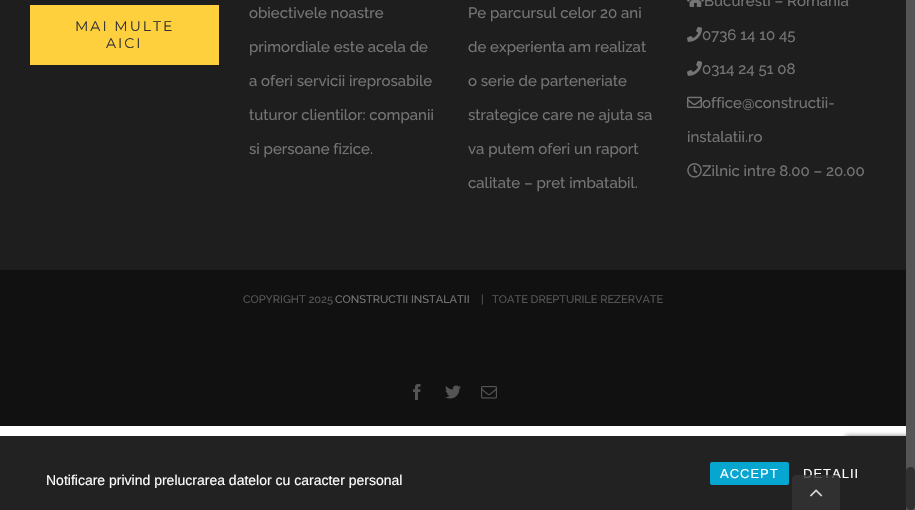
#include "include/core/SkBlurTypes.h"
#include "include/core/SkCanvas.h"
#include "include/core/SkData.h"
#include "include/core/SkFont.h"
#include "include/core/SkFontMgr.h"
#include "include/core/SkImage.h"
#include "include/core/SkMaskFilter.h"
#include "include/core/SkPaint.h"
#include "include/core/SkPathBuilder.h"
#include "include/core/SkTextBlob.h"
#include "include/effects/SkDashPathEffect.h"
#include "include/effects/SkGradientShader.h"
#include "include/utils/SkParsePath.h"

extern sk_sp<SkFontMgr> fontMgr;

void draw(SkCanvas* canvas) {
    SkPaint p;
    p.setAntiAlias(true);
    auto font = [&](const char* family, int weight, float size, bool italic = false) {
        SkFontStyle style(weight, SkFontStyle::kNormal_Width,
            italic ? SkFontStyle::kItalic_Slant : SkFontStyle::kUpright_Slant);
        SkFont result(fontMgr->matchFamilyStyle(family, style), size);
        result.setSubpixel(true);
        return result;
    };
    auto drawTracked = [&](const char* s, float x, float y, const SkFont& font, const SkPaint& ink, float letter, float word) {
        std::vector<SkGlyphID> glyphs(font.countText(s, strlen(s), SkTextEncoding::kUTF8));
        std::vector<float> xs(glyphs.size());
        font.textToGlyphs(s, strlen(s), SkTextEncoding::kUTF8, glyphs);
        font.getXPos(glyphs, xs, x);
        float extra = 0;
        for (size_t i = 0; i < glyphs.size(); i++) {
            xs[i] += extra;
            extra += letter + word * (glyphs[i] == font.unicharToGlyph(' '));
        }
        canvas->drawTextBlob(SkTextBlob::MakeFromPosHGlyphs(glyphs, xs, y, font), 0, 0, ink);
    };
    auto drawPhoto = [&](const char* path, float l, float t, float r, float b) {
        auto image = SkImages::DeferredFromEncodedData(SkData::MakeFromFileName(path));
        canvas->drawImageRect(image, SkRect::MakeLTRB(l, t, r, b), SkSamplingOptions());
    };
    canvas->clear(0xFFFFFFFF);
    p.setColor(0xFF1E1E1E);
    canvas->drawRect(SkRect::MakeLTRB(0, 0, 906, 270), p);
    p.setColor(0xFFFED03D);
    canvas->drawRect(SkRect::MakeLTRB(30, 5, 219, 65), p);
    auto font1 = font("Montserrat", 100, 14);
    p.setColor(0xFF333333);
    drawTracked("MAI MULTE", 75, 31, font1, p, 2, 0);
    drawTracked("AICI", 106, 48, font1, p, 2, 0);
    auto font2 = font("Raleway", 100, 15);
    p.setColor(0xFF747474);
    {
        const struct { const char* s; float x, y; } items[] = {
            {"obiectivele noastre", 249, 18},
            {"primordiale este acela de", 249, 52},
            {"a oferi servicii ireprosabile", 249, 86},
            {"tuturor clientilor: companii", 249, 120},
            {"si persoane fizice.", 249, 154},
            {"Pe parcursul celor 20 ani", 468, 18},
            {"de experienta am realizat", 468, 52},
            {"o serie de parteneriate", 468, 86},
            {"strategice care ne ajuta sa", 468, 120},
            {"va putem oferi un raport", 468, 154},
            {"calitate – pret imbatabil.", 468, 188},
        };
        for (auto [s, x, y] : items) {
            canvas->drawString(s, x, y, font2, p);
        }
    }
    drawPhoto("media/1.png", 687, 0, 704, 7);
    canvas->drawString("Bucuresti – Romania", 704, 6, font2, p);
    drawPhoto("media/2.png", 687, 27, 702, 42);
    canvas->drawString("0736 14 10 45", 702, 40, font2, p);
    drawPhoto("media/2.png", 687, 61, 702, 76);
    canvas->drawString("0314 24 51 08", 702, 74, font2, p);
    drawPhoto("media/3.png", 687, 96, 702, 108);
    canvas->drawString("office@constructii-", 702, 108, font2, p);
    canvas->drawString("instalatii.ro", 687, 142, font2, p);
    drawPhoto("media/4.png", 687, 163, 702, 178);
    canvas->drawString("Zilnic intre 8.00 – 20.00", 702, 176, font2, p);
    p.setColor(0xFF111111);
    canvas->drawRect(SkRect::MakeLTRB(0, 270, 906, 426), p);
    auto font3 = font("Raleway", 100, 11);
    p.setColor(0xFF545454);
    canvas->drawString("COPYRIGHT 2025", 243, 303, font3, p);
    p.setColor(0xFF747474);
    canvas->drawString("CONSTRUCTII INSTALATII", 335, 303, font3, p);
    p.setColor(0xFF545454);
    canvas->drawString("|   TOATE DREPTURILE REZERVATE", 481, 303, font3, p);
    drawPhoto("media/5.png", 413, 384, 421, 400);
    drawPhoto("media/6.png", 445, 385, 461, 399);
    drawPhoto("media/7.png", 481, 386, 497, 399);
    p.setColor(0xFF808080);
    p.setMaskFilter(SkMaskFilter::MakeBlur(kNormal_SkBlurStyle, 2.5f));
    canvas->drawRoundRect(SkRect::MakeLTRB(845, 436, 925, 496), 2, 2, p);
    p.setMaskFilter(nullptr);
    p.setColor(0xFF555555);
    canvas->drawRect(SkRect::MakeLTRB(906, 0, 915, 510), p);
    p.setColor(0xFF303030);
    canvas->drawRoundRect(SkRect::MakeLTRB(906, 467, 915, 510), 4.5f, 4.5f, p);
    p.setColor(0xFF222222);
    canvas->drawRect(SkRect::MakeLTRB(0, 436, 906, 510), p);
    auto font4 = font("Liberation Sans", 400, 14);
    p.setColor(0xFFFFFFFF);
    canvas->drawString("Notificare privind prelucrarea datelor cu caracter personal", 46, 485, font4, p);
    p.setColor(0xFF07A6D0);
    canvas->drawRoundRect(SkRect::MakeLTRB(710, 462, 789, 485), 2, 2, p);
    auto font5 = font("Liberation Sans", 400, 13);
    p.setColor(0xFFFFFFFF);
    drawTracked("ACCEPT", 720, 478, font5, p, 1, 0);
    drawTracked("DETALII", 803, 478, font5, p, 1, 0);
    p.setColor(0xCC333333);
    canvas->drawPath(SkPathBuilder().moveTo(796, 475).lineTo(836, 475).cubicTo(838, 475, 840, 477, 840, 479).lineTo(840, 510).lineTo(792, 510).lineTo(792, 479).cubicTo(792, 477, 794, 475, 796, 475).close().detach(), p);
    drawPhoto("media/8.png", 810, 489, 823, 497);
}
